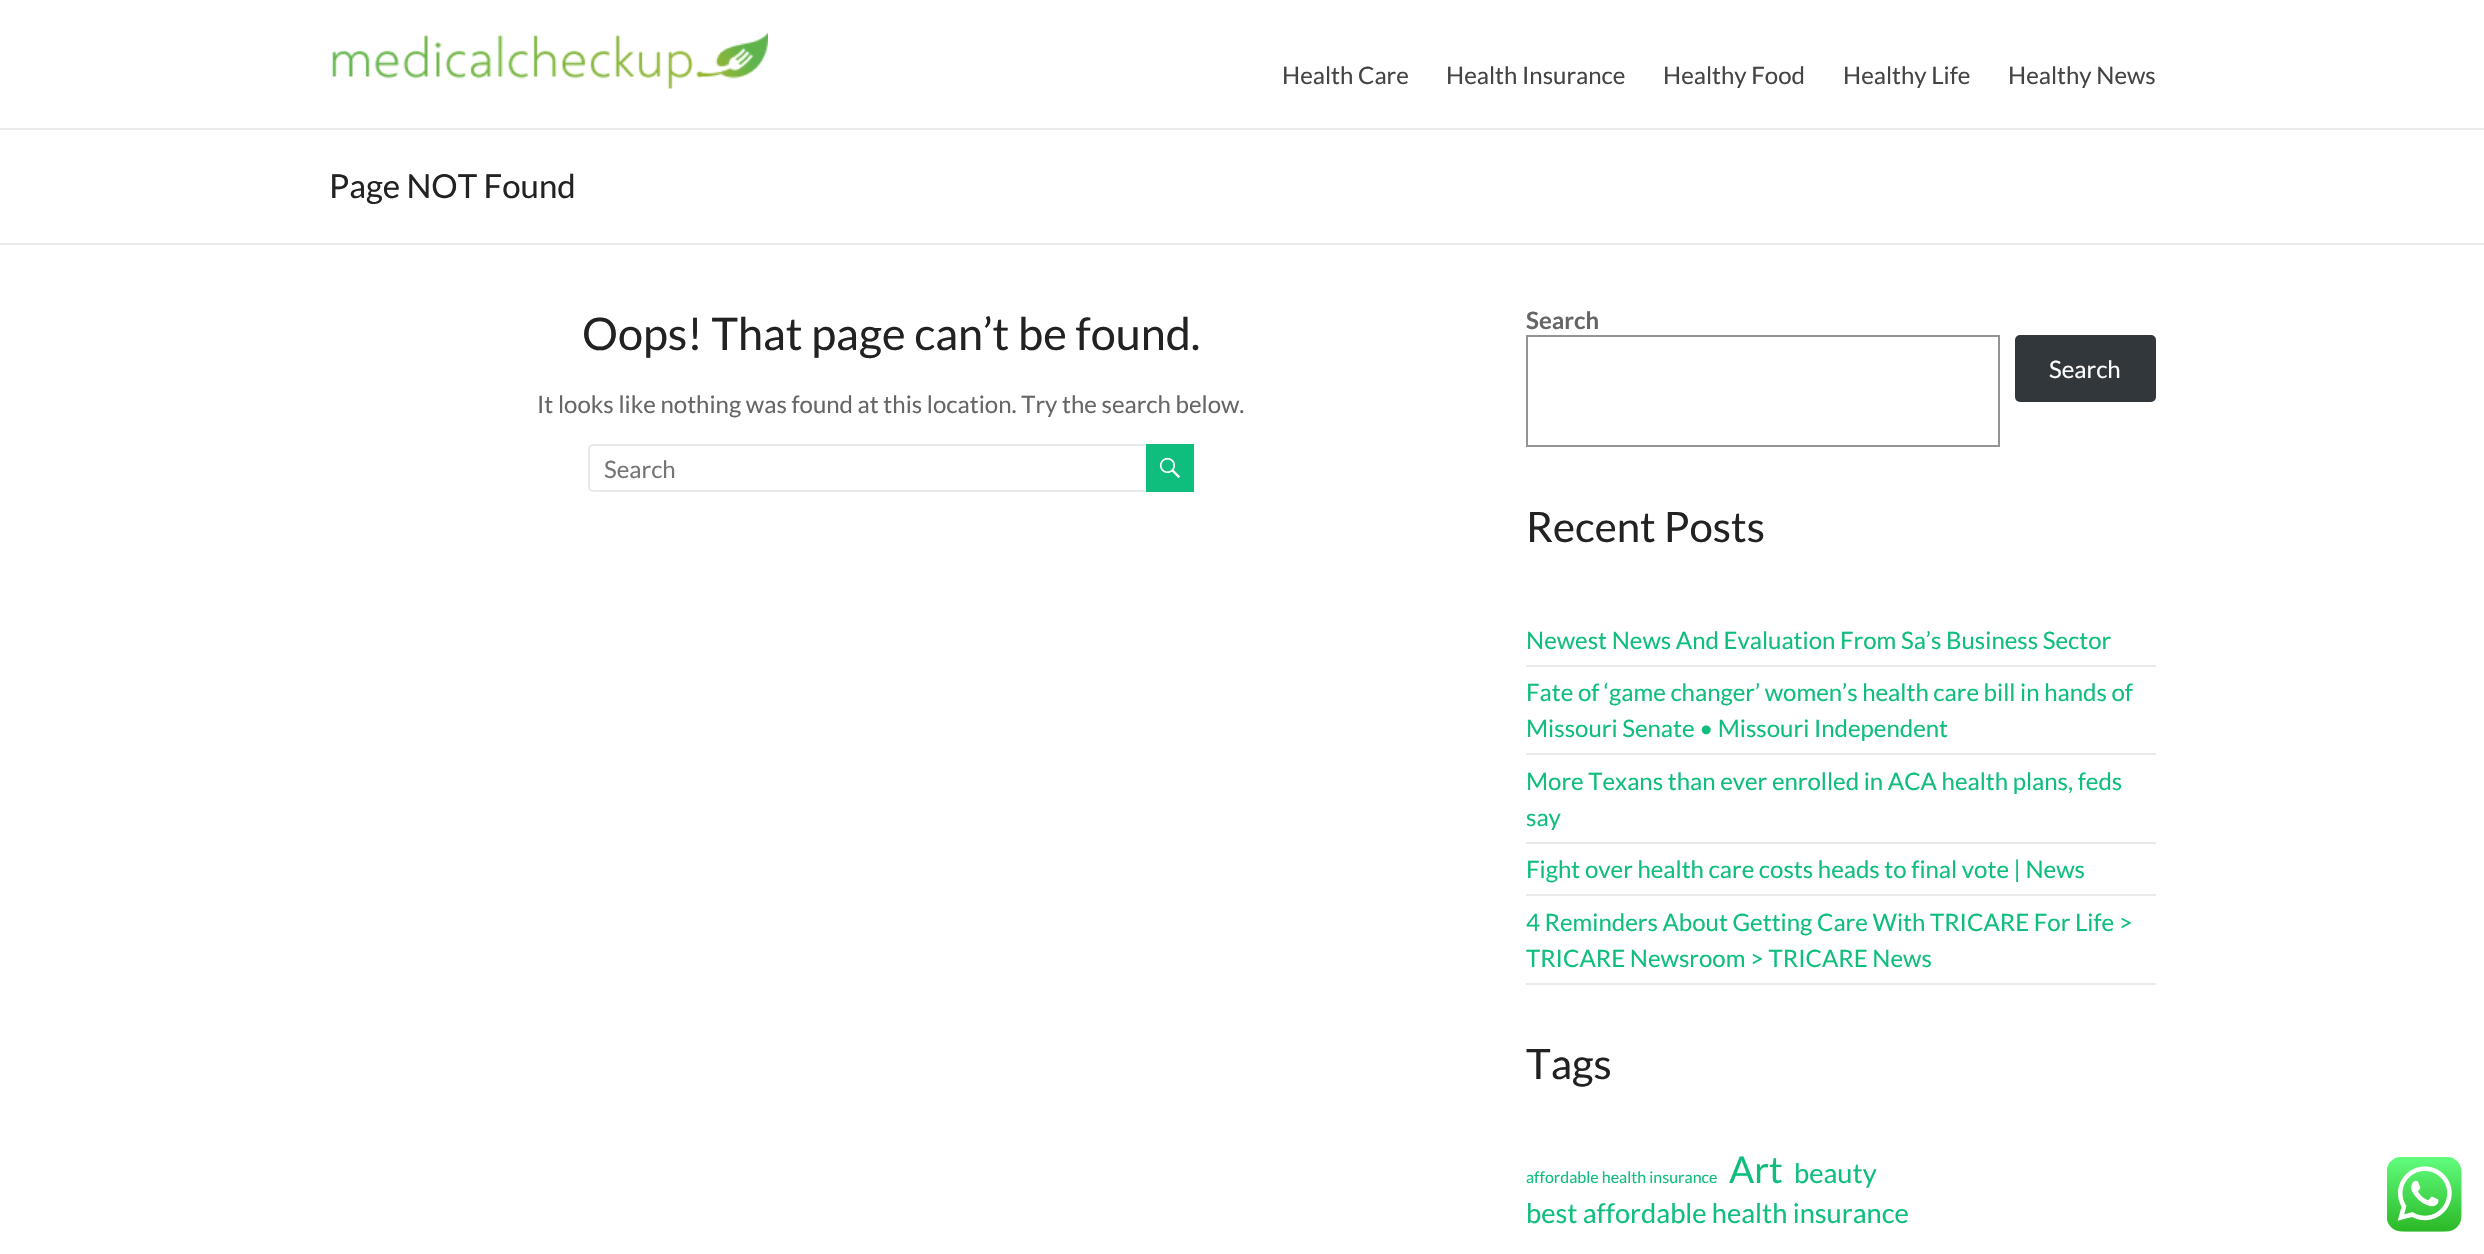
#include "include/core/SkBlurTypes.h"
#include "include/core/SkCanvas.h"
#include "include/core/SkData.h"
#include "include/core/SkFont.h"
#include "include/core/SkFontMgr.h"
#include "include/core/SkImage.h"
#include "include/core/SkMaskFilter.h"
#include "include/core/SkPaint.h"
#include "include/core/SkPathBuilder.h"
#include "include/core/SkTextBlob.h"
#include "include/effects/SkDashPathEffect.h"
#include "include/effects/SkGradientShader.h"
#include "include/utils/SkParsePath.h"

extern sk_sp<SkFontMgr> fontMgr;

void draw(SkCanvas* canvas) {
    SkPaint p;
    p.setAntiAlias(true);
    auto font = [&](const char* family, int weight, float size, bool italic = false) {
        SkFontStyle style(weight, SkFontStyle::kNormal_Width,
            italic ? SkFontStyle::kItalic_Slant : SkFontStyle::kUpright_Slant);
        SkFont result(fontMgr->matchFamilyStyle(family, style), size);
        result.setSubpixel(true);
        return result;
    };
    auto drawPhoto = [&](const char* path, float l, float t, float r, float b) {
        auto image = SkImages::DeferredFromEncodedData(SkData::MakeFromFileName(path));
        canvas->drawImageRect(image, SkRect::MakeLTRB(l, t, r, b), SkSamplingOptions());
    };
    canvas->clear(0xFFFFFFFF);
    p.setColor(0xFFEAEAEA);
    canvas->drawRect(SkRect::MakeLTRB(0, 128, 2484, 130), p);
    drawPhoto("media/1.png", 331, 32, 768, 89);
    auto font1 = font("Lato", 400, 24);
    p.setColor(0xFF444444);
    {
        const struct { const char* s; float x, y; } items[] = {
            {"Health Care", 1282, 84},
            {"Health Insurance", 1446, 84},
            {"Healthy Food", 1663, 84},
            {"Healthy Life", 1843, 84},
            {"Healthy News", 2008, 84},
        };
        for (auto [s, x, y] : items) {
            canvas->drawString(s, x, y, font1, p);
        }
    }
    p.setColor(0xFFEAEAEA);
    canvas->drawRect(SkRect::MakeLTRB(0, 243, 2484, 245), p);
    auto font2 = font("Lato", 400, 33);
    p.setColor(0xFF222222);
    canvas->drawString("Page NOT Found", 329, 198, font2, p);
    auto font3 = font("Lato", 400, 45);
    canvas->drawString("Oops! That page can’t be found.", 582, 350, font3, p);
    p.setColor(0xFF666666);
    canvas->drawString("It looks like nothing was found at this location. Try the search below.", 537, 413, font1, p);
    p.setStyle(SkPaint::kStroke_Style);
    p.setStrokeWidth(2);
    p.setColor(0xFFEAEAEA);
    canvas->drawRoundRect(SkRect::MakeLTRB(589, 445, 1150, 491), 4, 4, p);
    p.setStyle(SkPaint::kFill_Style);
    p.setColor(0xFF757575);
    canvas->drawString("Search", 604, 478, font1, p);
    p.setColor(0xFF0FBE7C);
    canvas->drawRect(SkRect::MakeLTRB(1146, 444, 1194, 492), p);
    drawPhoto("media/2.png", 1159, 457, 1180, 478);
    auto font4 = font("Lato", 700, 24);
    p.setColor(0xFF666666);
    canvas->drawString("Search", 1526, 329, font4, p);
    p.setStyle(SkPaint::kStroke_Style);
    p.setColor(0xFF949494);
    canvas->drawRect(SkRect::MakeLTRB(1527, 336, 1999, 446), p);
    p.setStyle(SkPaint::kFill_Style);
    p.setColor(0xFF32373C);
    canvas->drawRoundRect(SkRect::MakeLTRB(2015, 335, 2156, 402), 5, 5, p);
    p.setColor(0xFFFFFFFF);
    canvas->drawString("Search", 2049, 378, font1, p);
    auto font5 = font("Lato", 400, 42);
    p.setColor(0xFF222222);
    canvas->drawString("Recent Posts", 1526, 542, font5, p);
    p.setColor(0xFFEAEAEA);
    canvas->drawRect(SkRect::MakeLTRB(1526, 665, 2156, 667), p);
    p.setColor(0xFF0FBE7C);
    canvas->drawString("Newest News And Evaluation From Sa’s Business Sector", 1526, 649, font1, p);
    p.setColor(0xFFEAEAEA);
    canvas->drawRect(SkRect::MakeLTRB(1526, 753, 2156, 755), p);
    p.setColor(0xFF0FBE7C);
    canvas->drawString("Fate of ‘game changer’ women’s health care bill in hands of", 1526, 701, font1, p);
    canvas->drawString("Missouri Senate • Missouri Independent", 1526, 737, font1, p);
    p.setColor(0xFFEAEAEA);
    canvas->drawRect(SkRect::MakeLTRB(1526, 842, 2156, 844), p);
    p.setColor(0xFF0FBE7C);
    canvas->drawString("More Texans than ever enrolled in ACA health plans, feds", 1526, 790, font1, p);
    canvas->drawString("say", 1526, 826, font1, p);
    p.setColor(0xFFEAEAEA);
    canvas->drawRect(SkRect::MakeLTRB(1526, 894, 2156, 896), p);
    p.setColor(0xFF0FBE7C);
    canvas->drawString("Fight over health care costs heads to final vote | News", 1526, 878, font1, p);
    p.setColor(0xFFEAEAEA);
    canvas->drawRect(SkRect::MakeLTRB(1526, 983, 2156, 985), p);
    p.setColor(0xFF0FBE7C);
    canvas->drawString("4 Reminders About Getting Care With TRICARE For Life >", 1526, 931, font1, p);
    canvas->drawString("TRICARE Newsroom > TRICARE News", 1526, 967, font1, p);
    p.setColor(0xFF222222);
    canvas->drawString("Tags", 1526, 1079, font5, p);
    auto font6 = font("Lato", 400, 16);
    p.setColor(0xFF0FBE7C);
    canvas->drawString("affordable health insurance", 1526, 1183, font6, p);
    auto font7 = font("Lato", 400, 37);
    canvas->drawString("Art", 1729, 1183, font7, p);
    auto font8 = font("Lato", 400, 27.25f);
    canvas->drawString("beauty", 1794, 1183, font8, p);
    canvas->drawString("best affordable health insurance", 1526, 1223, font8, p);
    drawPhoto("media/3.png", 2387, 1157, 2462, 1232);
}
